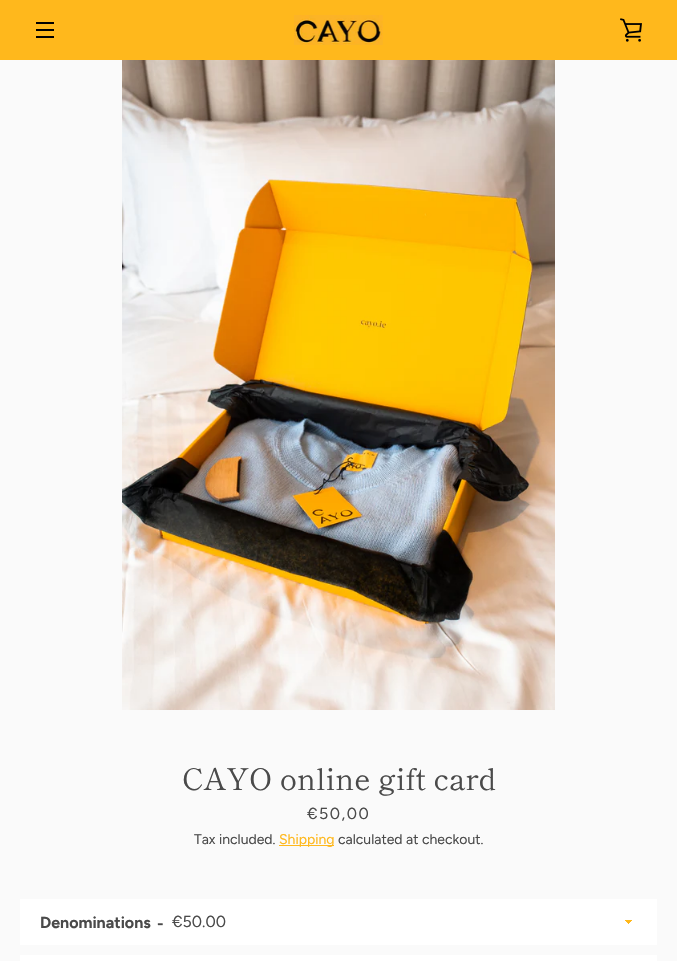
#include "include/core/SkBlurTypes.h"
#include "include/core/SkCanvas.h"
#include "include/core/SkData.h"
#include "include/core/SkFont.h"
#include "include/core/SkFontMgr.h"
#include "include/core/SkImage.h"
#include "include/core/SkMaskFilter.h"
#include "include/core/SkPaint.h"
#include "include/core/SkPathBuilder.h"
#include "include/core/SkTextBlob.h"
#include "include/effects/SkDashPathEffect.h"
#include "include/effects/SkGradientShader.h"
#include "include/utils/SkParsePath.h"

extern sk_sp<SkFontMgr> fontMgr;

void draw(SkCanvas* canvas) {
    SkPaint p;
    p.setAntiAlias(true);
    auto font = [&](const char* family, int weight, float size, bool italic = false) {
        SkFontStyle style(weight, SkFontStyle::kNormal_Width,
            italic ? SkFontStyle::kItalic_Slant : SkFontStyle::kUpright_Slant);
        SkFont result(fontMgr->matchFamilyStyle(family, style), size);
        result.setSubpixel(true);
        return result;
    };
    auto drawTracked = [&](const char* s, float x, float y, const SkFont& font, const SkPaint& ink, float letter, float word) {
        std::vector<SkGlyphID> glyphs(font.countText(s, strlen(s), SkTextEncoding::kUTF8));
        std::vector<float> xs(glyphs.size());
        font.textToGlyphs(s, strlen(s), SkTextEncoding::kUTF8, glyphs);
        font.getXPos(glyphs, xs, x);
        float extra = 0;
        for (size_t i = 0; i < glyphs.size(); i++) {
            xs[i] += extra;
            extra += letter + word * (glyphs[i] == font.unicharToGlyph(' '));
        }
        canvas->drawTextBlob(SkTextBlob::MakeFromPosHGlyphs(glyphs, xs, y, font), 0, 0, ink);
    };
    auto drawPhoto = [&](const char* path, float l, float t, float r, float b) {
        auto image = SkImages::DeferredFromEncodedData(SkData::MakeFromFileName(path));
        canvas->drawImageRect(image, SkRect::MakeLTRB(l, t, r, b), SkSamplingOptions());
    };
    canvas->clear(0xFFFAFAFA);
    {
        const struct { float l, t, r, b; SkColor color; } items[] = {
            {0, 0, 677, 60, 0xFFFFB81C},
            {36, 22, 54, 24, 0xFF000000},
            {36, 29, 54, 31, 0xFF000000},
            {36, 36, 54, 38, 0xFF000000},
        };
        for (auto [l, t, r, b, color] : items) {
            p.setColor(color);
            canvas->drawRect(SkRect::MakeLTRB(l, t, r, b), p);
        }
    }
    drawPhoto("media/1.png", 294, 15, 383, 45);
    drawPhoto("media/2.png", 620, 18, 642, 42);
    drawPhoto("media/3.png", 122, 60, 555, 710);
    auto font1 = font("Shippori Mincho", 400, 30);
    p.setColor(0xFF4A4A4A);
    canvas->drawString("CAYO online gift card", 182, 790, font1, p);
    auto font2 = font("Figtree", 400, 16);
    drawTracked("€50,00", 307, 819, font2, p, 1.5f, 0);
    auto font3 = font("Figtree", 400, 14);
    canvas->drawString("Tax included.", 194, 844, font3, p);
    p.setColor(0xFFFFB81C);
    canvas->drawString("Shipping", 279, 844, font3, p);
    canvas->drawRect(SkRect::MakeLTRB(279, 845, 334, 846), p);
    p.setColor(0xFF4A4A4A);
    canvas->drawString("calculated at checkout.", 338, 844, font3, p);
    p.setColor(0xFFFFFFFF);
    canvas->drawRect(SkRect::MakeLTRB(20, 899, 657, 945), p);
    auto font4 = font("Figtree", 700, 16);
    p.setColor(0xFF4A4A4A);
    canvas->drawString("Denominations", 40, 928, font4, p);
    canvas->drawString("-", 157, 929, font4, p);
    {
        const SkColor colors[] = {0xFFFFB81C, 0xFFFFFFFF};
        const float stops[] = {0.5f, 0.5f};
        const SkPoint ends[] = {{629, 920}, {633, 924}};
        p.setShader(SkGradientShader::MakeLinear(ends, colors, stops, 2, SkTileMode::kClamp));
        p.setAlpha(255);
    }
    canvas->drawRect(SkRect::MakeLTRB(629, 920, 633, 923), p);
    {
        const SkColor colors[] = {0xFFFFFFFF, 0xFFFFB81C};
        const float stops[] = {0.5f, 0.5f};
        const SkPoint ends[] = {{625, 924}, {629, 920}};
        p.setShader(SkGradientShader::MakeLinear(ends, colors, stops, 2, SkTileMode::kClamp));
        p.setAlpha(255);
    }
    canvas->drawRect(SkRect::MakeLTRB(625, 920, 629, 924), p);
    p.setShader(nullptr);
    p.setColor(0xFF4A4A4A);
    canvas->drawString("€50.00", 172, 927, font2, p);
    p.setColor(0xFFFFFFFF);
    canvas->drawRect(SkRect::MakeLTRB(20, 955, 657, 961), p);
}
